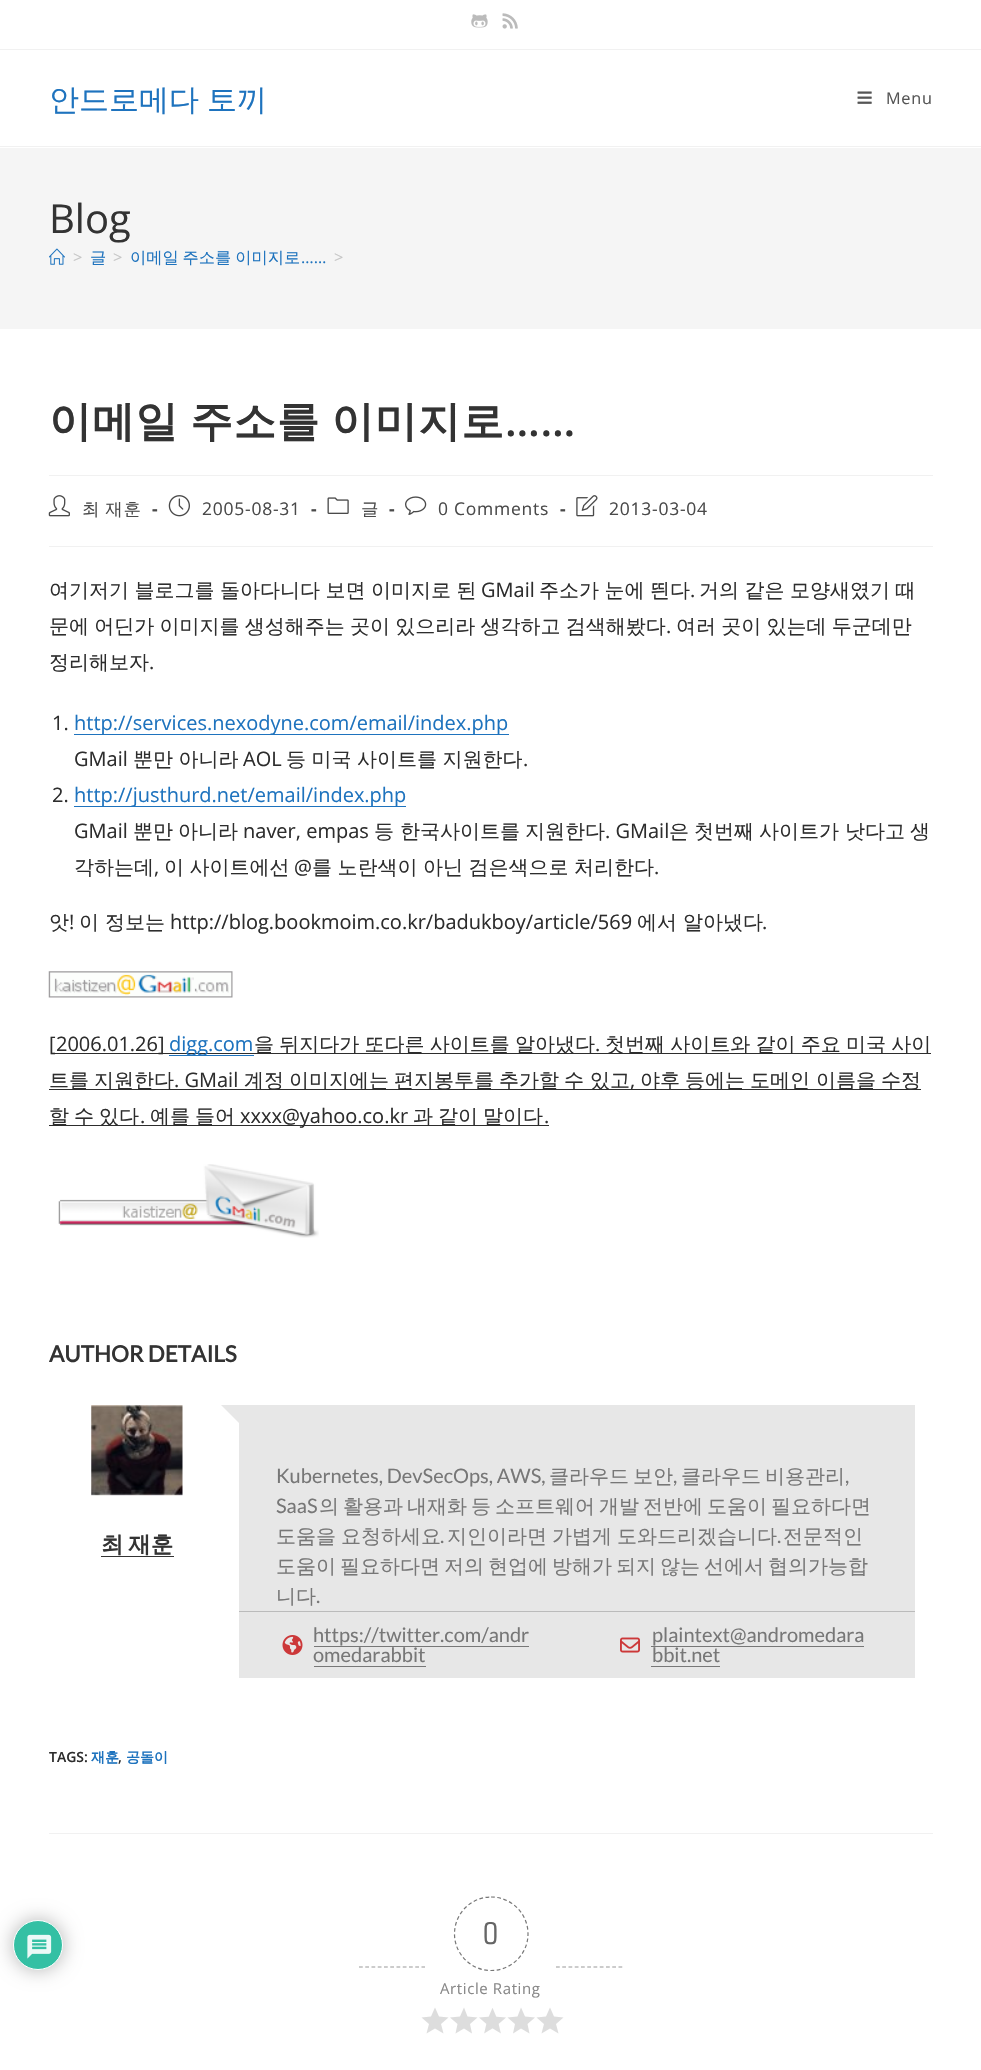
#include "include/core/SkBlurTypes.h"
#include "include/core/SkCanvas.h"
#include "include/core/SkData.h"
#include "include/core/SkFont.h"
#include "include/core/SkFontMgr.h"
#include "include/core/SkImage.h"
#include "include/core/SkMaskFilter.h"
#include "include/core/SkPaint.h"
#include "include/core/SkPathBuilder.h"
#include "include/core/SkTextBlob.h"
#include "include/effects/SkDashPathEffect.h"
#include "include/effects/SkGradientShader.h"
#include "include/utils/SkParsePath.h"

extern sk_sp<SkFontMgr> fontMgr;

void draw(SkCanvas* canvas) {
    SkPaint p;
    p.setAntiAlias(true);
    auto font = [&](const char* family, int weight, float size, bool italic = false) {
        SkFontStyle style(weight, SkFontStyle::kNormal_Width,
            italic ? SkFontStyle::kItalic_Slant : SkFontStyle::kUpright_Slant);
        SkFont result(fontMgr->matchFamilyStyle(family, style), size);
        result.setSubpixel(true);
        return result;
    };
    auto drawTracked = [&](const char* s, float x, float y, const SkFont& font, const SkPaint& ink, float letter, float word) {
        std::vector<SkGlyphID> glyphs(font.countText(s, strlen(s), SkTextEncoding::kUTF8));
        std::vector<float> xs(glyphs.size());
        font.textToGlyphs(s, strlen(s), SkTextEncoding::kUTF8, glyphs);
        font.getXPos(glyphs, xs, x);
        float extra = 0;
        for (size_t i = 0; i < glyphs.size(); i++) {
            xs[i] += extra;
            extra += letter + word * (glyphs[i] == font.unicharToGlyph(' '));
        }
        canvas->drawTextBlob(SkTextBlob::MakeFromPosHGlyphs(glyphs, xs, y, font), 0, 0, ink);
    };
    auto drawPhoto = [&](const char* path, float l, float t, float r, float b) {
        auto image = SkImages::DeferredFromEncodedData(SkData::MakeFromFileName(path));
        canvas->drawImageRect(image, SkRect::MakeLTRB(l, t, r, b), SkSamplingOptions());
    };
    canvas->clear(0xFFFFFFFF);
    p.setColor(0xFFB3B3B3);
    p.setMaskFilter(SkMaskFilter::MakeBlur(kNormal_SkBlurStyle, 9.5f));
    canvas->drawRoundRect(SkRect::MakeLTRB(13, 1920, 63, 1970), 25, 25, p);
    p.setMaskFilter(nullptr);
    p.setColor(0xFF34C0A4);
    canvas->drawCircle(38, 1945, 24.5f, p);
    p.setStyle(SkPaint::kStroke_Style);
    p.setStrokeWidth(1);
    p.setColor(0xFFFFFFFF);
    canvas->drawCircle(38, 1945, 24.5f, p);
    drawPhoto("media/1.png", 27, 1934, 52, 1959);
    p.setStyle(SkPaint::kFill_Style);
    p.setColor(0xFFF1F1F1);
    canvas->drawRect(SkRect::MakeLTRB(0, 49, 981, 50), p);
    drawPhoto("media/2.png", 471, 14, 488, 28);
    drawPhoto("media/3.png", 502, 13, 518, 29);
    canvas->drawRect(SkRect::MakeLTRB(0, 146, 981, 147), p);
    auto font1 = font("WenQuanYi Zen Hei", 500, 30);
    p.setColor(0xFF1E73BE);
    drawTracked("안드로메다 토끼", 49, 110, font1, p, 0, -1);
    drawPhoto("media/4.png", 857, 91, 872, 104);
    auto font2 = font("Open Sans", 400, 16.25f);
    p.setColor(0xFF555555);
    drawTracked("Menu", 886, 104, font2, p, 0.75f, 0);
    p.setColor(0xFFF5F5F5);
    canvas->drawRect(SkRect::MakeLTRB(0, 148, 981, 329), p);
    auto font3 = font("Open Sans", 400, 40);
    p.setColor(0xFF333333);
    canvas->drawString("Blog", 49, 233, font3, p);
    drawPhoto("media/5.png", 49, 248, 65, 265);
    p.setColor(0xFFC6C6C6);
    canvas->drawString(">", 73, 263, font2, p);
    auto font4 = font("WenQuanYi Zen Hei", 500, 16.25f);
    p.setColor(0xFF1E73BE);
    canvas->drawString("글", 90, 263, font4, p);
    p.setColor(0xFFC6C6C6);
    canvas->drawString(">", 113, 263, font2, p);
    p.setColor(0xFF1E73BE);
    drawTracked("이메일 주소를 이미지로", 130, 263, font4, p, 0, -1);
    p.setColor(0xFFC6C6C6);
    canvas->drawString(">", 334, 263, font2, p);
    p.setColor(0xFF1E73BE);
    canvas->drawString("……", 301, 263, font2, p);
    p.setColor(0xFFF1F1F1);
    canvas->drawRect(SkRect::MakeLTRB(49, 475, 933, 476), p);
    auto font5 = font("WenQuanYi Zen Hei", 700, 42.5f);
    p.setColor(0xFF333333);
    drawTracked("이메일 주소를 이미지로", 49, 436, font5, p, 0.75f, -2);
    auto font6 = font("Open Sans", 600, 42.5f);
    drawTracked("……", 505, 436, font6, p, 0.75f, 0);
    p.setColor(0xFFF1F1F1);
    canvas->drawRect(SkRect::MakeLTRB(49, 546, 933, 547), p);
    drawPhoto("media/6.png", 48, 495, 70, 517);
    auto font7 = font("WenQuanYi Zen Hei", 500, 17.5f);
    p.setColor(0xFF4A4A4A);
    drawTracked("최 재훈", 82, 515, font7, p, 0.75f, -1);
    auto font8 = font("Open Sans", 700, 17.5f);
    drawTracked("-", 152, 515, font8, p, 0.75f, 0);
    drawPhoto("media/7.png", 168, 495, 190, 517);
    auto font9 = font("Open Sans", 400, 17.5f);
    drawTracked("2005-08-31", 202, 515, font9, p, 0.75f, 0);
    drawTracked("-", 311, 515, font8, p, 0.75f, 0);
    drawPhoto("media/8.png", 327, 497, 349, 514);
    drawTracked("글", 361, 515, font7, p, 0.75f, 0);
    drawTracked("-", 389, 515, font8, p, 0.75f, 0);
    drawPhoto("media/9.png", 405, 496, 427, 515);
    drawTracked("0 Comments", 438, 515, font9, p, 0.75f, 0);
    drawTracked("-", 560, 515, font8, p, 0.75f, 0);
    drawPhoto("media/10.png", 576, 495, 598, 517);
    drawTracked("2013-03-04", 609, 515, font9, p, 0.75f, 0);
    auto font10 = font("WenQuanYi Zen Hei", 500, 20);
    p.setColor(0xFF2D2D2D);
    drawTracked("여기저기 블로그를 돌아다니다 보면 이미지로 된", 49, 597, font10, p, 0, -0.5f);
    auto font11 = font("Open Sans", 400, 20);
    canvas->drawString("GMail", 481, 597, font11, p);
    drawTracked("주소가 눈에 띈다", 539, 597, font10, p, 0, -0.5f);
    canvas->drawString(".", 690, 597, font11, p);
    drawTracked("거의 같은 모양새였기 때", 699, 597, font10, p, 0, -0.5f);
    drawTracked("문에 어딘가 이미지를 생성해주는 곳이 있으리라 생각하고 검색해봤다", 49, 633, font10, p, 0, -0.75f);
    canvas->drawString(".", 666, 633, font11, p);
    drawTracked("여러 곳이 있는데 두군데만", 676, 633, font10, p, 0, -0.75f);
    canvas->drawString("정리해보자", 49, 669, font10, p);
    canvas->drawString(".", 149, 669, font11, p);
    canvas->drawString("1.", 52, 730, font11, p);
    p.setColor(0xFF1E73BE);
    canvas->drawRect(SkRect::MakeLTRB(74, 734, 509, 735), p);
    canvas->drawString("http://services.nexodyne.com/email/index.php", 74, 730, font11, p);
    p.setColor(0xFF2D2D2D);
    canvas->drawString("GMail", 74, 766, font11, p);
    drawTracked("뿐만 아니라", 133, 766, font10, p, 0, -0.5f);
    canvas->drawString("AOL", 243, 766, font11, p);
    drawTracked("등 미국 사이트를 지원한다", 286, 766, font10, p, 0, -0.5f);
    canvas->drawString(".", 523, 766, font11, p);
    canvas->drawString("2.", 52, 802, font11, p);
    p.setColor(0xFF1E73BE);
    canvas->drawRect(SkRect::MakeLTRB(74, 806, 406, 807), p);
    canvas->drawString("http://justhurd.net/email/index.php", 74, 802, font11, p);
    p.setColor(0xFF2D2D2D);
    canvas->drawString("GMail", 74, 838, font11, p);
    canvas->drawString("뿐만", 133, 838, font10, p);
    canvas->drawString("아니라", 178, 838, font10, p);
    canvas->drawString("naver, empas", 243, 838, font11, p);
    {
        const struct { const char* s; float x, y; } items[] = {
            {"등", 374, 838},
            {"한국사이트를", 400, 838},
            {"지원한다", 525, 838},
        };
        for (auto [s, x, y] : items) {
            canvas->drawString(s, x, y, font10, p);
        }
    }
    canvas->drawString(". GMail", 605, 838, font11, p);
    {
        const struct { const char* s; float x, y; } items[] = {
            {"은", 669, 838},
            {"첫번째", 694, 838},
            {"사이트가", 759, 838},
            {"낫다고", 845, 838},
            {"생", 910, 838},
            {"각하는데", 74, 874},
        };
        for (auto [s, x, y] : items) {
            canvas->drawString(s, x, y, font10, p);
        }
    }
    canvas->drawString(",", 154, 874, font11, p);
    drawTracked("이 사이트에선", 164, 874, font10, p, 0, -0.5f);
    canvas->drawString("@", 294, 874, font11, p);
    drawTracked("를 노란색이 아닌 검은색으로 처리한다", 312, 874, font10, p, 0, -0.5f);
    canvas->drawString(".", 654, 874, font11, p);
    canvas->drawString("앗", 49, 929, font10, p);
    canvas->drawString("!", 69, 929, font11, p);
    canvas->drawString("이 정보는", 79, 929, font10, p);
    canvas->drawString("http://blog.bookmoim.co.kr/badukboy/article/569", 170, 929, font11, p);
    canvas->drawString("에서 알아냈다", 637, 929, font10, p);
    canvas->drawString(".", 762, 929, font11, p);
    drawPhoto("media/11.png", 48, 971, 233, 998);
    canvas->drawString("[", 49, 1051, font11, p);
    canvas->drawRect(SkRect::MakeLTRB(55, 1053, 931, 1054), p);
    canvas->drawString("2006.01.26]", 56, 1051, font11, p);
    p.setColor(0xFF1E73BE);
    canvas->drawRect(SkRect::MakeLTRB(169, 1055, 254, 1056), p);
    canvas->drawString("digg.com", 169, 1051, font11, p);
    p.setColor(0xFF2D2D2D);
    drawTracked("을 뒤지다가 또다른 사이트를 알아냈다", 254, 1051, font10, p, 0, -0.75f);
    canvas->drawString(".", 595, 1051, font11, p);
    drawTracked("첫번째 사이트와 같이 주요 미국 사이", 605, 1051, font10, p, 0, -0.75f);
    canvas->drawRect(SkRect::MakeLTRB(49, 1089, 921, 1090), p);
    canvas->drawString("트를", 49, 1087, font10, p);
    canvas->drawString("지원한다", 94, 1087, font10, p);
    canvas->drawString(". GMail", 174, 1087, font11, p);
    {
        const struct { const char* s; float x, y; } items[] = {
            {"계정", 244, 1087},
            {"이미지에는", 289, 1087},
            {"편지봉투를", 394, 1087},
            {"추가할", 499, 1087},
            {"수", 564, 1087},
            {"있고", 590, 1087},
        };
        for (auto [s, x, y] : items) {
            canvas->drawString(s, x, y, font10, p);
        }
    }
    canvas->drawString(",", 630, 1087, font11, p);
    {
        const struct { const char* s; float x, y; } items[] = {
            {"야후", 640, 1087},
            {"등에는", 685, 1087},
            {"도메인", 750, 1087},
            {"이름을", 816, 1087},
            {"수정", 881, 1087},
        };
        for (auto [s, x, y] : items) {
            canvas->drawString(s, x, y, font10, p);
        }
    }
    canvas->drawRect(SkRect::MakeLTRB(49, 1125, 549, 1126), p);
    drawTracked("할 수 있다", 49, 1123, font10, p, 0, -1);
    canvas->drawString(".", 140, 1123, font11, p);
    drawTracked("예를 들어", 150, 1123, font10, p, 0, -1);
    canvas->drawString("xxxx@yahoo.co.kr", 240, 1123, font11, p);
    drawTracked("과 같이 말이다", 413, 1123, font10, p, 0, -1);
    canvas->drawString(".", 544, 1123, font11, p);
    drawPhoto("media/12.png", 58, 1164, 319, 1238);
    auto font12 = font("Lato", 700, 22.5f);
    p.setColor(0xFF333333);
    canvas->drawString("AUTHOR DETAILS", 49, 1362, font12, p);
    drawPhoto("media/13.png", 91, 1405, 183, 1496);
    auto font13 = font("WenQuanYi Zen Hei", 700, 22.5f);
    drawTracked("최 재훈", 101, 1552, font13, p, 0, -2);
    canvas->drawRect(SkRect::MakeLTRB(101, 1556, 174, 1557), p);
    p.setColor(0xFFE7E7E7);
    canvas->drawRect(SkRect::MakeLTRB(239, 1405, 915, 1678), p);
    canvas->drawPath(SkPathBuilder().moveTo(246, 1405).lineTo(246, 1430).lineTo(221, 1405).close().detach(), p);
    auto font14 = font("Lato", 400, 20);
    p.setColor(0xFF777777);
    canvas->drawString("Kubernetes, DevSecOps, AWS,", 276, 1483, font14, p);
    canvas->drawString("클라우드", 549, 1483, font10, p);
    canvas->drawString("보안", 633, 1483, font10, p);
    canvas->drawString(",", 673, 1483, font14, p);
    canvas->drawString("클라우드", 681, 1483, font10, p);
    canvas->drawString("비용관리", 765, 1483, font10, p);
    canvas->drawString(",", 845, 1483, font14, p);
    canvas->drawString("SaaS", 276, 1513, font14, p);
    drawTracked("의 활용과 내재화 등 소프트웨어 개발 전반에 도움이 필요하다면", 319, 1513, font10, p, 0, -2);
    drawTracked("도움을 요청하세요", 276, 1543, font10, p, 0, -1);
    canvas->drawString(".", 440, 1543, font14, p);
    drawTracked("지인이라면 가볍게 도와드리겠습니다", 447, 1543, font10, p, 0, -1);
    canvas->drawString(".", 777, 1543, font14, p);
    canvas->drawString("전문적인", 783, 1543, font10, p);
    drawTracked("도움이 필요하다면 저의 현업에 방해가 되지 않는 선에서 협의가능합", 276, 1573, font10, p, 0, -2);
    canvas->drawString("니다", 276, 1603, font10, p);
    canvas->drawString(".", 316, 1603, font14, p);
    p.setColor(0xFFBBBBBB);
    canvas->drawRect(SkRect::MakeLTRB(239, 1611, 915, 1612), p);
    drawPhoto("media/14.png", 282, 1635, 303, 1655);
    p.setColor(0xFF777777);
    canvas->drawString("https://twitter.com/andr", 313, 1642, font14, p);
    canvas->drawString("omedarabbit", 313, 1662, font14, p);
    canvas->drawRect(SkRect::MakeLTRB(314, 1646, 529, 1647), p);
    canvas->drawRect(SkRect::MakeLTRB(314, 1666, 426, 1667), p);
    drawPhoto("media/15.png", 620, 1637, 640, 1653);
    canvas->drawString("plaintext@andromedara", 652, 1642, font14, p);
    canvas->drawString("bbit.net", 652, 1662, font14, p);
    canvas->drawRect(SkRect::MakeLTRB(651, 1646, 864, 1647), p);
    canvas->drawRect(SkRect::MakeLTRB(651, 1666, 720, 1667), p);
    auto font15 = font("Open Sans", 600, 14);
    p.setColor(0xFF2D2D2D);
    canvas->drawString("TAGS:", 49, 1762, font15, p);
    auto font16 = font("WenQuanYi Zen Hei", 700, 14);
    p.setColor(0xFF1E73BE);
    canvas->drawString("재훈", 91, 1762, font16, p);
    p.setColor(0xFF2D2D2D);
    canvas->drawString(",", 118, 1762, font15, p);
    p.setColor(0xFF1E73BE);
    canvas->drawString("공돌이", 126, 1762, font16, p);
    p.setColor(0xFFF1F1F1);
    canvas->drawRect(SkRect::MakeLTRB(49, 1833, 933, 1834), p);
    p.setStyle(SkPaint::kStroke_Style);
    p.setStrokeWidth(1.2f);
    p.setColor(0xFF999999);
    p.setPathEffect(SkDashPathEffect::Make({{3.75f, 2.5f}}, 0));
    canvas->drawPath(SkPathBuilder().moveTo(359, 1967).lineTo(425, 1967).detach(), p);
    p.setPathEffect(nullptr);
    p.setColor(0xFF777777);
    p.setPathEffect(SkDashPathEffect::Make({{3.75f, 2.5f}}, 0));
    canvas->drawPath(SkPathBuilder().moveTo(491, 1897).cubicTo(511.5f, 1897, 528, 1913.5f, 528, 1934).cubicTo(528, 1954, 511.5f, 1970.5f, 491, 1970.5f).cubicTo(471, 1970.5f, 454.5f, 1954, 454.5f, 1934).cubicTo(454.5f, 1913.5f, 471, 1897, 491, 1897).close().detach(), p);
    p.setPathEffect(nullptr);
    auto font17 = font("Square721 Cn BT", 400, 30);
    p.setStyle(SkPaint::kFill_Style);
    p.setColor(0xFF666666);
    canvas->drawString("0", 483, 1944, font17, p);
    auto font18 = font("Open Sans", 400, 15);
    p.setColor(0xFF888888);
    drawTracked("Article Rating", 440, 1994, font18, p, 0.6f, 0);
    p.setColor(0xFFDDDDDD);
    canvas->drawPath(SkPathBuilder().moveTo(435, 2028.5f).lineTo(443.5f, 2033.5f).lineTo(441, 2024).lineTo(448.5f, 2017.5f).lineTo(439, 2016.5f).lineTo(435, 2007.5f).lineTo(431, 2016.5f).lineTo(421.5f, 2017.5f).lineTo(429, 2024).lineTo(426.5f, 2033.5f).close().moveTo(464, 2028.5f).lineTo(472, 2033.5f).lineTo(470, 2024).lineTo(477.5f, 2017.5f).lineTo(467.5f, 2016.5f).lineTo(464, 2007.5f).lineTo(460, 2016.5f).lineTo(450, 2017.5f).lineTo(457.5f, 2024).lineTo(455.5f, 2033.5f).close().detach(), p);
    drawPhoto("media/16.png", 479, 2008, 506, 2034);
    canvas->drawPath(SkPathBuilder().moveTo(521, 2028.5f).lineTo(529.5f, 2033.5f).lineTo(527.5f, 2024).lineTo(535, 2017.5f).lineTo(525, 2016.5f).lineTo(521, 2007.5f).lineTo(517.5f, 2016.5f).lineTo(507.5f, 2017.5f).lineTo(515, 2024).lineTo(513, 2033.5f).close().moveTo(550, 2028.5f).lineTo(558.5f, 2033.5f).lineTo(556, 2024).lineTo(563.5f, 2017.5f).lineTo(554, 2016.5f).lineTo(550, 2007.5f).lineTo(546, 2016.5f).lineTo(536.5f, 2017.5f).lineTo(544, 2024).lineTo(541.5f, 2033.5f).close().detach(), p);
    p.setStyle(SkPaint::kStroke_Style);
    p.setColor(0xFF999999);
    p.setPathEffect(SkDashPathEffect::Make({{3.75f, 2.5f}}, 0));
    canvas->drawPath(SkPathBuilder().moveTo(556, 1967).lineTo(622.5f, 1967).detach(), p);
    p.setPathEffect(nullptr);
}
